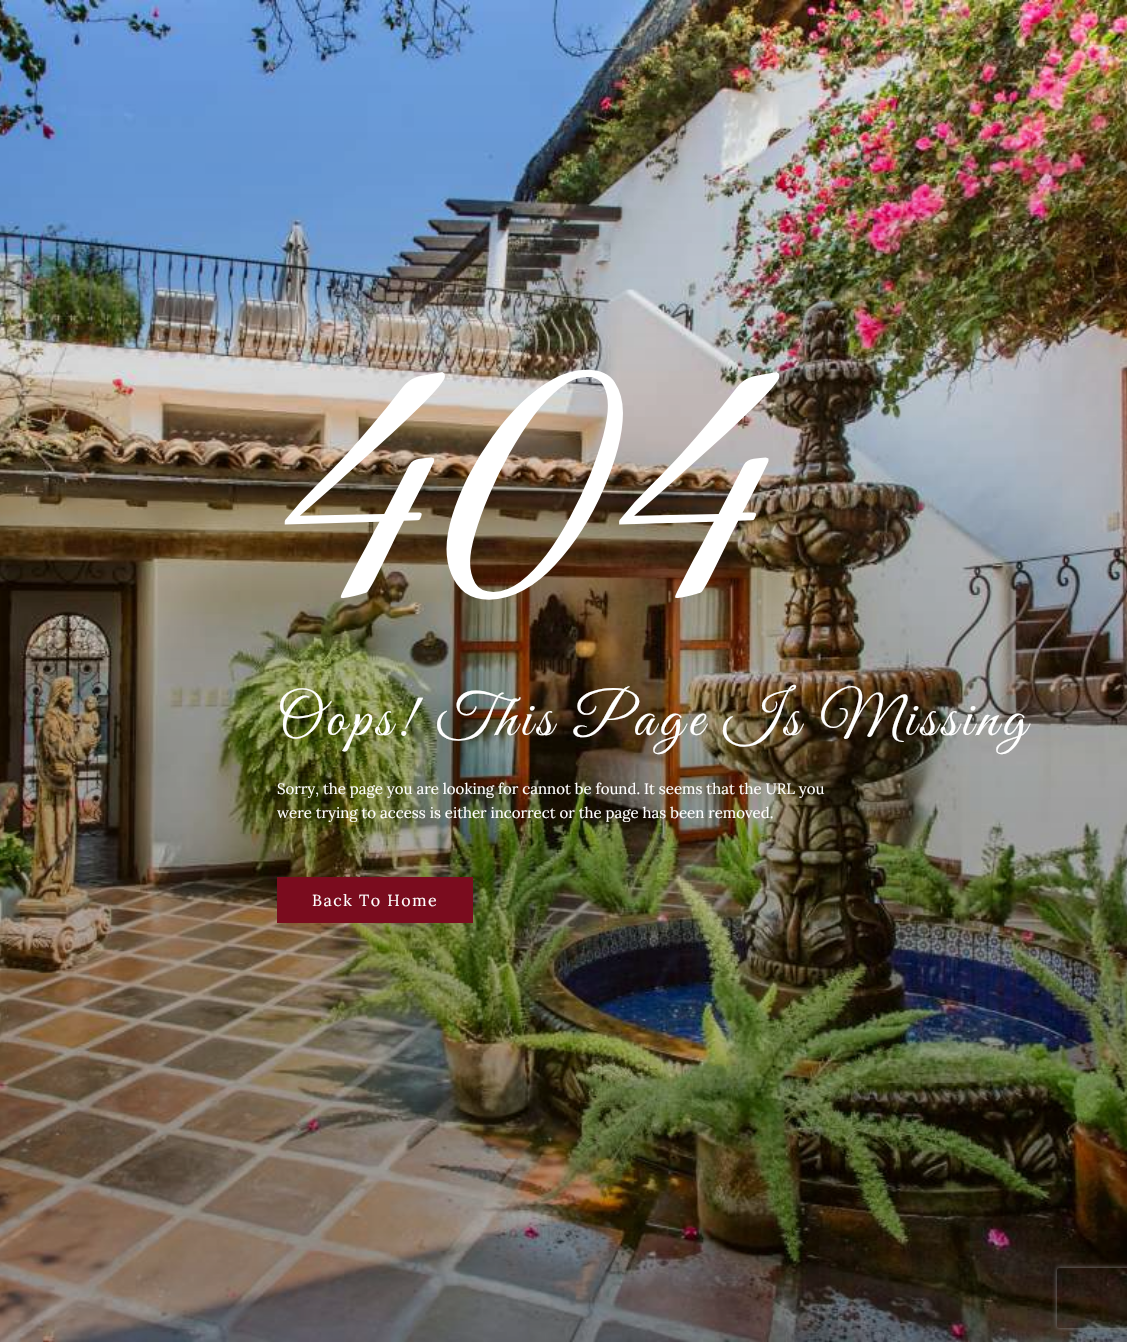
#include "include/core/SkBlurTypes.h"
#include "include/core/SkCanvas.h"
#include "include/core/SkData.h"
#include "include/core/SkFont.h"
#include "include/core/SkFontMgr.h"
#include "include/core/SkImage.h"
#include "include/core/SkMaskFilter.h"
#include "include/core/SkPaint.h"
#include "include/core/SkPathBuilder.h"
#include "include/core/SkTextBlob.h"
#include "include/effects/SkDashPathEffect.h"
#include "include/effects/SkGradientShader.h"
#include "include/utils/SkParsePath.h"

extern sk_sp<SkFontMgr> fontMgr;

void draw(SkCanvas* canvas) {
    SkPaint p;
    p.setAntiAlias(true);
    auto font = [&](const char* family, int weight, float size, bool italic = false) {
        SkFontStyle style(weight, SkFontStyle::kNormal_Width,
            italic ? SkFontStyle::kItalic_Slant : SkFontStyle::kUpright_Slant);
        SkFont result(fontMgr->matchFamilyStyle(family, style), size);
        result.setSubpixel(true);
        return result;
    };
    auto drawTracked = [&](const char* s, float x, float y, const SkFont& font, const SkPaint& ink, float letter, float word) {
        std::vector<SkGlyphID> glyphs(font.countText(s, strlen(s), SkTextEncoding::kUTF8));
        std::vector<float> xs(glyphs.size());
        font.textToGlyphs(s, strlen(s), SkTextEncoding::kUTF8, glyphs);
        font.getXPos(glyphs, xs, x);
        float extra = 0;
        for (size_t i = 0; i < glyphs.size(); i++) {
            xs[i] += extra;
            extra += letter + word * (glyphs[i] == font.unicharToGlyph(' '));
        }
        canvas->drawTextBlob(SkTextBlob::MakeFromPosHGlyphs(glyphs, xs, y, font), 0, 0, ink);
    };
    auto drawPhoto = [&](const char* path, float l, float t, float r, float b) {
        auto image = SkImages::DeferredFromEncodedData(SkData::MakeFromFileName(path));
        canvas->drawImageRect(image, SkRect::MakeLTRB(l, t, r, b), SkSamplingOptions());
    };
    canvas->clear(0xFFFFFFFF);
    drawPhoto("media/1.png", 0, 0, 1127, 1342);
    auto font1 = font("Great Vibes", 400, 387);
    p.setColor(0xFFFFFFFF);
    canvas->drawString("404", 277, 595, font1, p);
    auto font2 = font("Great Vibes", 400, 60);
    drawTracked("Oops! This Page Is Missing", 277, 735, font2, p, 4.8f, 0.5f);
    auto font3 = font("Lora", 400, 15);
    canvas->drawString("Sorry, the page you are looking for cannot be found. It seems that the URL you", 277, 794, font3, p);
    canvas->drawString("were trying to access is either incorrect or the page has been removed.", 277, 818, font3, p);
    p.setColor(0xFF7A0C1E);
    canvas->drawRect(SkRect::MakeLTRB(277, 877, 473, 923), p);
    auto font4 = font("Lora", 400, 16);
    p.setColor(0xFFFFFFFF);
    drawTracked("Back To Home", 312, 906, font4, p, 1.5f, 0);
    canvas->save();
    canvas->clipPath(SkPathBuilder(SkPathFillType::kEvenOdd).moveTo(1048, 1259).lineTo(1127, 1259).lineTo(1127, 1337).lineTo(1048, 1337).close().moveTo(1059, 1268).lineTo(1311, 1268).cubicTo(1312, 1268, 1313, 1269, 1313, 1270).lineTo(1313, 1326).cubicTo(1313, 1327, 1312, 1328, 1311, 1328).lineTo(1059, 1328).cubicTo(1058, 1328, 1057, 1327, 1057, 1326).lineTo(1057, 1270).cubicTo(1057, 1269, 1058, 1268, 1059, 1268).close().detach(), true);
    p.setColor(0xFF808080);
    p.setMaskFilter(SkMaskFilter::MakeBlur(kNormal_SkBlurStyle, 2.5f));
    canvas->drawRoundRect(SkRect::MakeLTRB(1057, 1268, 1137, 1328), 2, 2, p);
    p.setMaskFilter(nullptr);
    canvas->restore();
}
